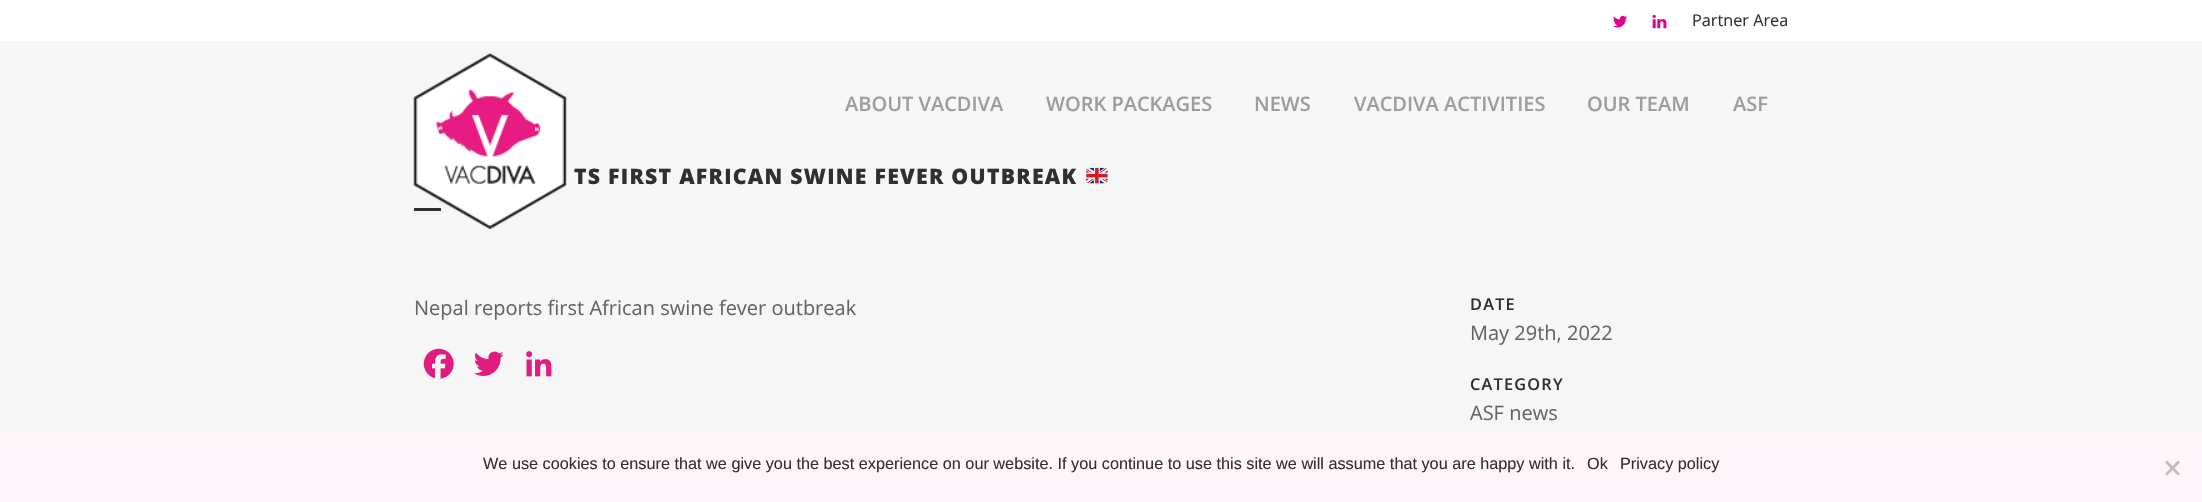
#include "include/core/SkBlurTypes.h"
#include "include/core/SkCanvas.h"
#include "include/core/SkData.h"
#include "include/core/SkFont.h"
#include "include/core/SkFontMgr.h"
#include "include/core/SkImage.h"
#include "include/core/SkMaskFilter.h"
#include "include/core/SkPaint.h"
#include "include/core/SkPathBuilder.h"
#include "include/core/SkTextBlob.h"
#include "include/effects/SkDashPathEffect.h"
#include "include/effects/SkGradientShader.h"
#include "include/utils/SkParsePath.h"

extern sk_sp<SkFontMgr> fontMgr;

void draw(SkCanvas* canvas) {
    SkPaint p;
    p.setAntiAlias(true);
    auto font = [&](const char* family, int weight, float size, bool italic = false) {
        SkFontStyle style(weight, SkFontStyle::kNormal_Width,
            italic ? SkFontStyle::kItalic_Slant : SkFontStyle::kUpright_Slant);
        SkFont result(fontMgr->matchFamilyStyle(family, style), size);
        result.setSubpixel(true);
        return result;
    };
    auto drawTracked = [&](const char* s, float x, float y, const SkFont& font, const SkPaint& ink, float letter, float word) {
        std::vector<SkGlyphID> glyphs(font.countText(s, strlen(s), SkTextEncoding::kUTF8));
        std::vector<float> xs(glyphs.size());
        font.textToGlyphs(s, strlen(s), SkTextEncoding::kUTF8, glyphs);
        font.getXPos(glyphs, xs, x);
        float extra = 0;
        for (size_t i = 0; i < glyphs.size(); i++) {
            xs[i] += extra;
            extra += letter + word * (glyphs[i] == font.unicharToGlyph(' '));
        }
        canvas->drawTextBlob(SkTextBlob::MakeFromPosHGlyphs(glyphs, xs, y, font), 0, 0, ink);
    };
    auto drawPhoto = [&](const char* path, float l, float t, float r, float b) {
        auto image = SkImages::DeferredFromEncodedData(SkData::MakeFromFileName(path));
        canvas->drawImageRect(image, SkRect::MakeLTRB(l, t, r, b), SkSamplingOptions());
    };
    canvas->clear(0xFFF6F6F6);
    p.setColor(0xFFFFFFFF);
    canvas->drawRect(SkRect::MakeLTRB(0, 0, 2202, 41), p);
    drawPhoto("media/1.png", 1613, 15, 1627, 28);
    drawPhoto("media/2.png", 1652, 14, 1667, 29);
    auto font1 = font("Open Sans", 400, 16.25f);
    p.setColor(0xFF303030);
    canvas->drawString("Partner Area", 1692, 26, font1, p);
    canvas->drawRect(SkRect::MakeLTRB(414, 208, 441, 211), p);
    drawPhoto("media/3.png", 413, 53, 567, 229);
    auto font2 = font("Open Sans", 600, 20);
    p.setColor(0xFF9D9D9D);
    {
        const struct { const char* s; float x, y; } items[] = {
            {"ABOUT VACDIVA", 845, 111},
            {"WORK PACKAGES", 1046, 111},
            {"NEWS", 1254, 111},
            {"VACDIVA ACTIVITIES", 1354, 111},
            {"OUR TEAM", 1587, 111},
            {"ASF", 1733, 111},
        };
        for (auto [s, x, y] : items) {
            canvas->drawString(s, x, y, font2, p);
        }
    }
    auto font3 = font("Open Sans", 800, 21.25f);
    p.setColor(0xFF303030);
    drawTracked("TS FIRST AFRICAN SWINE FEVER OUTBREAK", 574, 184, font3, p, 1.25f, 0);
    drawPhoto("media/4.png", 1086, 167, 1108, 184);
    auto font4 = font("Open Sans", 400, 20);
    p.setColor(0xFF656565);
    canvas->drawString("Nepal reports first African swine fever outbreak", 414, 315, font4, p);
    drawPhoto("media/5.png", 423, 348, 454, 379);
    drawPhoto("media/6.png", 474, 351, 504, 376);
    drawPhoto("media/7.png", 526, 351, 552, 377);
    auto font5 = font("Open Sans", 600, 16.25f);
    p.setColor(0xFF303030);
    drawTracked("DATE", 1470, 310, font5, p, 1.25f, 0);
    p.setColor(0xFF656565);
    canvas->drawString("May 29th, 2022", 1470, 340, font4, p);
    p.setColor(0xFF303030);
    drawTracked("CATEGORY", 1470, 390, font5, p, 1.25f, 0);
    p.setColor(0xFF656565);
    canvas->drawString("ASF news", 1470, 420, font4, p);
    p.setColor(0xFFFEF5FA);
    canvas->drawRect(SkRect::MakeLTRB(0, 433, 2202, 502), p);
    auto font6 = font("Liberation Sans", 400, 16.25f);
    p.setColor(0xFF303030);
    {
        const struct { const char* s; float x, y; } items[] = {
            {"We use cookies to ensure that we give you the best experience on our website. If you continue to use this site we will assume that you are happy with it.", 483, 469},
            {"Ok", 1587, 469},
            {"Privacy policy", 1620, 469},
        };
        for (auto [s, x, y] : items) {
            canvas->drawString(s, x, y, font6, p);
        }
    }
    p.setColor(0xFFBFBBBD);
    canvas->drawPath(SkPathBuilder().moveTo(2178, 460.5f).lineTo(2180, 462.5f).lineTo(2167, 475.5f).lineTo(2165, 474).close().detach(), p);
    canvas->drawPath(SkPathBuilder().moveTo(2165, 462.5f).lineTo(2167, 460.5f).lineTo(2180, 474).lineTo(2178, 475.5f).close().detach(), p);
}
